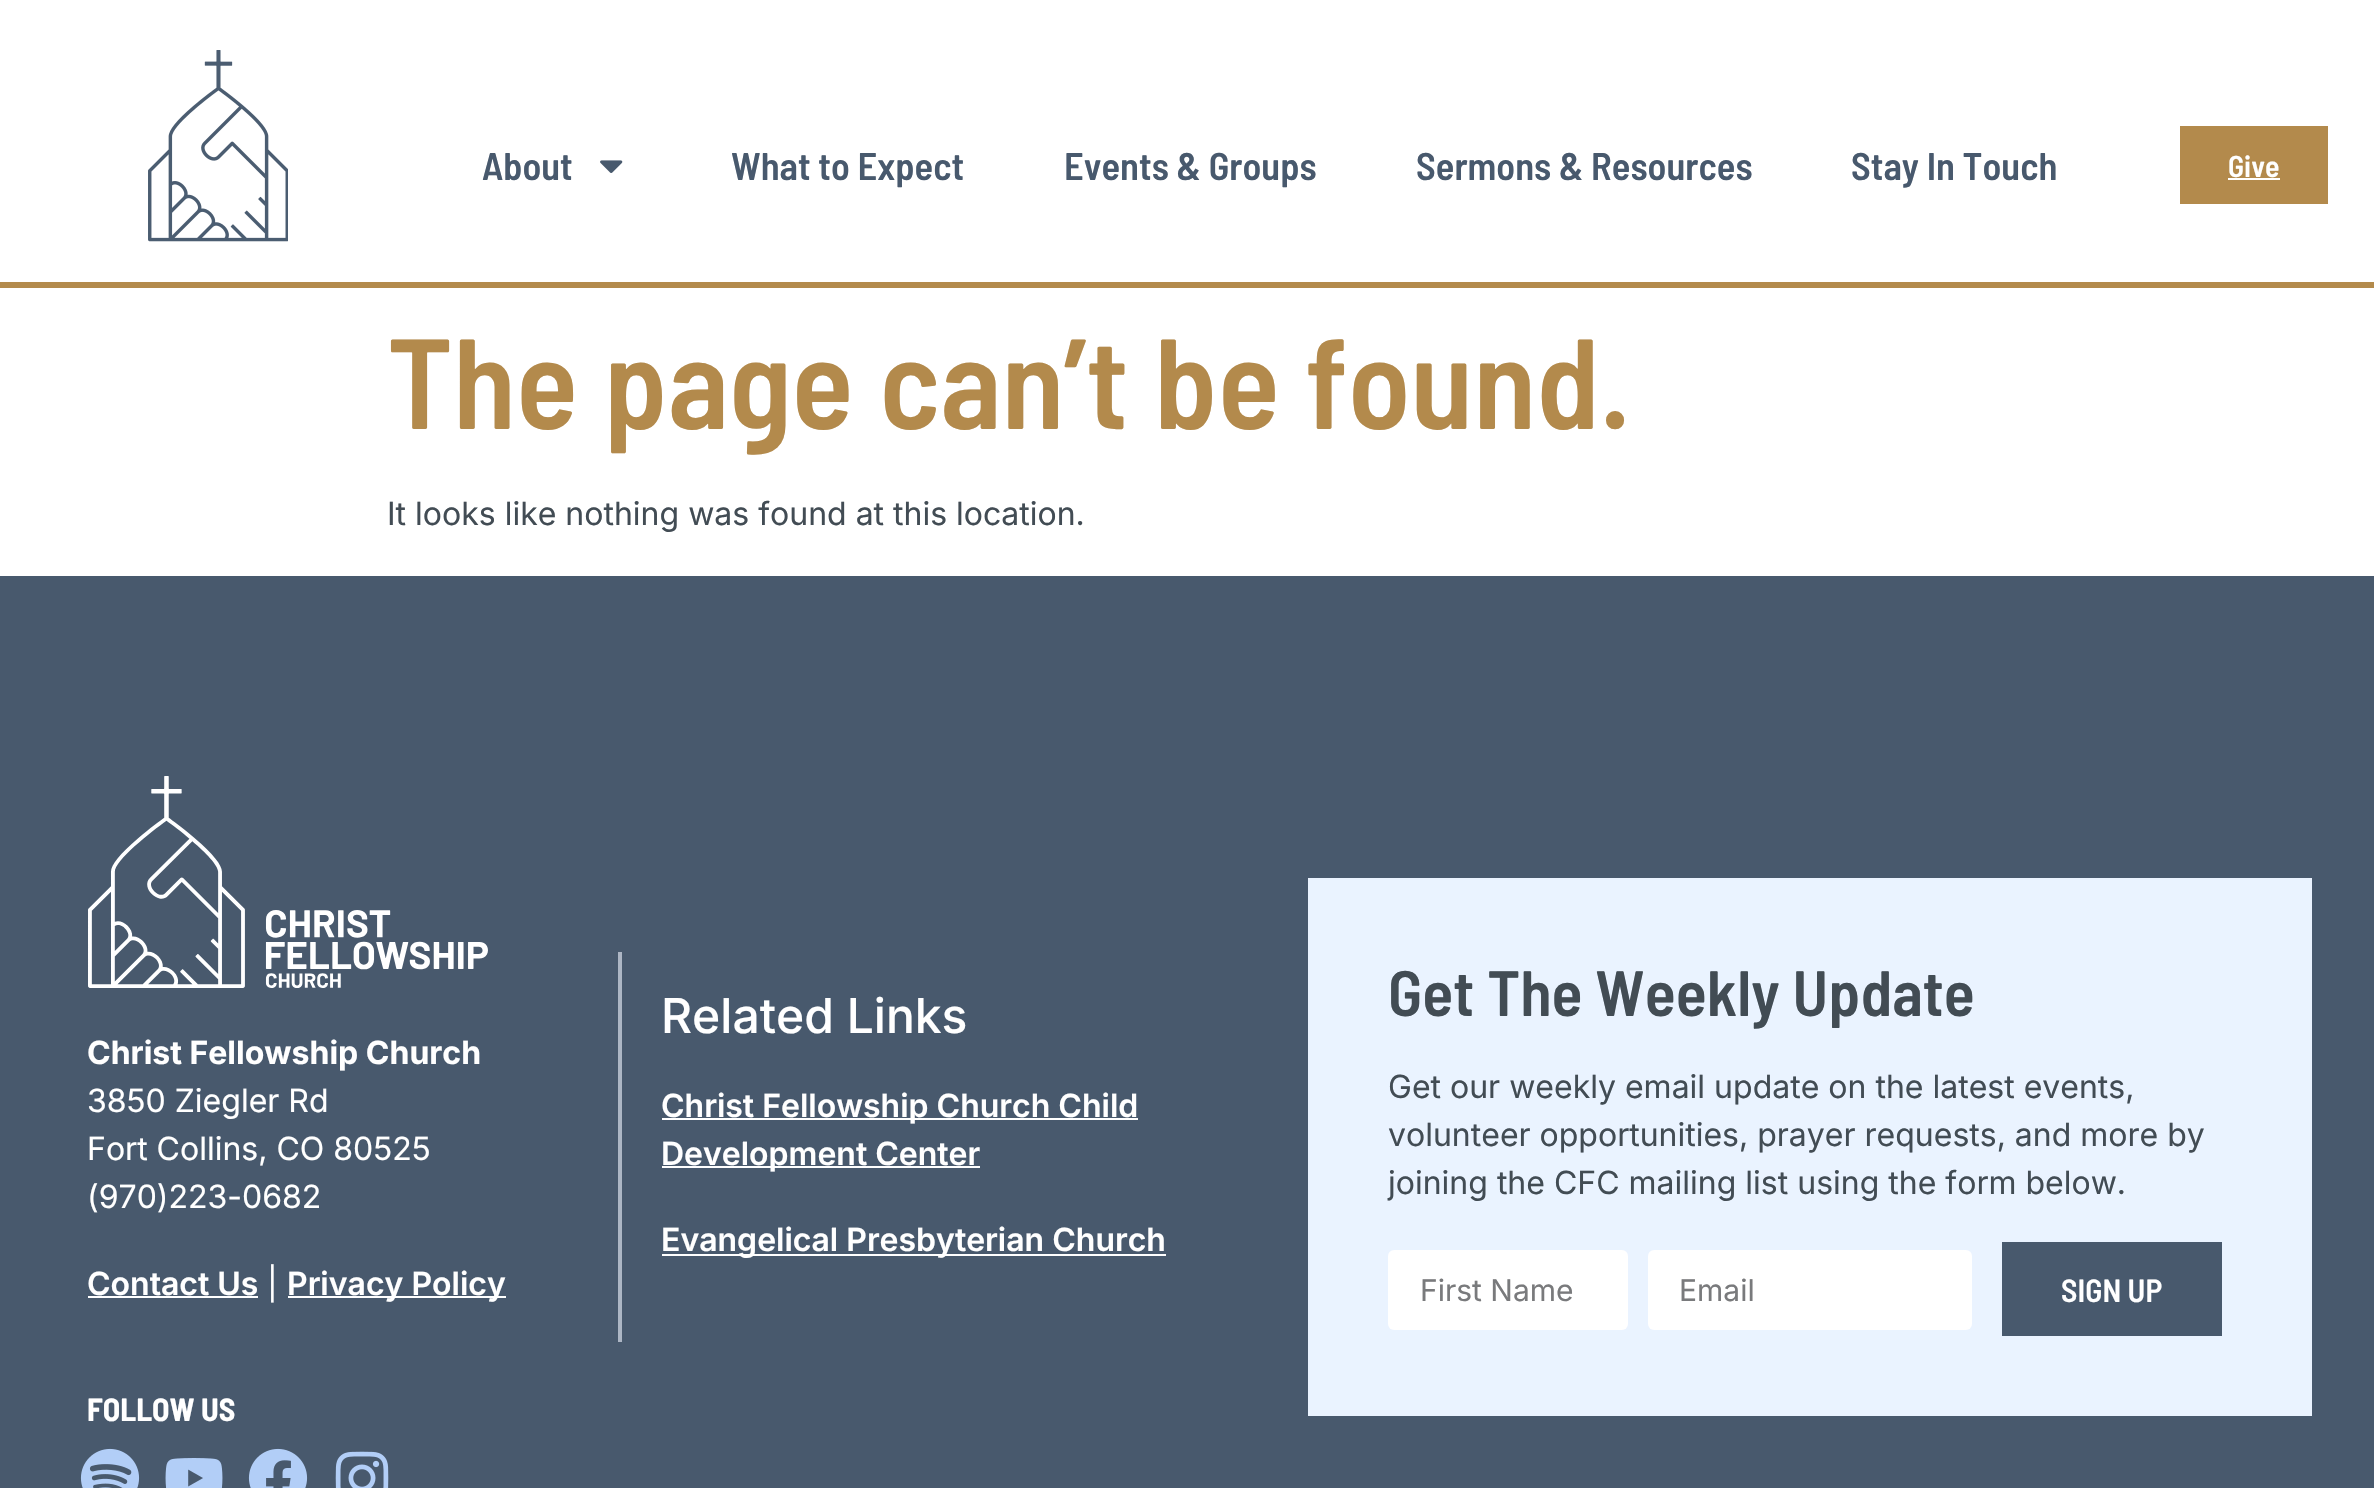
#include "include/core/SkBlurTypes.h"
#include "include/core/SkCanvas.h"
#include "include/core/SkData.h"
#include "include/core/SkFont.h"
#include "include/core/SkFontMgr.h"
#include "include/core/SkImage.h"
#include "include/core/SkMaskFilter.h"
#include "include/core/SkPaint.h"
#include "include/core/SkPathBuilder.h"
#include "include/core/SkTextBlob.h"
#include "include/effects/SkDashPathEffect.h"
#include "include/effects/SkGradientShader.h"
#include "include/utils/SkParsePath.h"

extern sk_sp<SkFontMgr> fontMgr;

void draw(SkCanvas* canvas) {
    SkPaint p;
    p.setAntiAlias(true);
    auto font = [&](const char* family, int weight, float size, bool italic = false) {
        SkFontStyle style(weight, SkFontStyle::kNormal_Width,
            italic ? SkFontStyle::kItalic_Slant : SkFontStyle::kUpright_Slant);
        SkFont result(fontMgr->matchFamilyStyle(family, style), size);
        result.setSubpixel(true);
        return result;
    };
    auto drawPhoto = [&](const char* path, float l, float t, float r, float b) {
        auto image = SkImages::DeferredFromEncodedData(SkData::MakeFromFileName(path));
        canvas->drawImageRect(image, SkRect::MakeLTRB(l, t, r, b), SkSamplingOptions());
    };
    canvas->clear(0xFFFFFFFF);
    p.setColor(0xFFB38A4C);
    canvas->drawRect(SkRect::MakeLTRB(0, 282, 2374, 288), p);
    drawPhoto("media/1.png", 148, 50, 288, 242);
    auto font1 = font("Barlow Semi Condensed", 600, 38.5f);
    p.setColor(0xFF48596D);
    canvas->drawString("About", 482, 180, font1, p);
    drawPhoto("media/2.png", 600, 160, 623, 173);
    {
        const struct { const char* s; float x, y; } items[] = {
            {"What to Expect", 731, 180},
            {"Events & Groups", 1064, 180},
            {"Sermons & Resources", 1416, 180},
            {"Stay In Touch", 1851, 180},
        };
        for (auto [s, x, y] : items) {
            canvas->drawString(s, x, y, font1, p);
        }
    }
    p.setColor(0xFFB38A4C);
    canvas->drawRect(SkRect::MakeLTRB(2180, 126, 2328, 204), p);
    auto font2 = font("Barlow Semi Condensed", 600, 30);
    p.setColor(0xFFFFFFFF);
    canvas->drawString("Give", 2228, 177, font2, p);
    canvas->drawRect(SkRect::MakeLTRB(2228, 178, 2280, 180), p);
    auto font3 = font("Barlow Semi Condensed", 600, 128);
    p.setColor(0xFFB38A4C);
    canvas->drawString("The page can’t be found.", 387, 429, font3, p);
    auto font4 = font("Inter", 400, 32);
    p.setColor(0xFF424C54);
    canvas->drawString("It looks like nothing was found at this location.", 387, 525, font4, p);
    p.setColor(0xFF48596D);
    canvas->drawRect(SkRect::MakeLTRB(0, 576, 2374, 1488), p);
    drawPhoto("media/3.png", 88, 776, 488, 988);
    auto font5 = font("Inter", 700, 32);
    p.setColor(0xFFFFFFFF);
    canvas->drawString("Christ Fellowship Church", 87, 1064, font5, p);
    {
        const struct { const char* s; float x, y; } items[] = {
            {"3850 Ziegler Rd", 87, 1112},
            {"Fort Collins, CO 80525", 87, 1160},
            {"(970)223-0682", 87, 1208},
        };
        for (auto [s, x, y] : items) {
            canvas->drawString(s, x, y, font4, p);
        }
    }
    auto font6 = font("Inter", 600, 32);
    canvas->drawString("Contact Us", 87, 1295, font6, p);
    canvas->drawRect(SkRect::MakeLTRB(88, 1296, 258, 1298), p);
    canvas->drawString("|", 267, 1295, font4, p);
    canvas->drawRect(SkRect::MakeLTRB(288, 1296, 506, 1298), p);
    canvas->drawString("Privacy Policy", 287, 1295, font6, p);
    auto font7 = font("Barlow Semi Condensed", 700, 32);
    canvas->drawString("FOLLOW US", 87, 1421, font7, p);
    drawPhoto("media/4.png", 80, 1448, 140, 1488);
    drawPhoto("media/5.png", 165, 1458, 223, 1488);
    drawPhoto("media/6.png", 248, 1448, 308, 1488);
    drawPhoto("media/7.png", 335, 1451, 389, 1488);
    p.setColor(0xFFADB6C4);
    canvas->drawRect(SkRect::MakeLTRB(618, 952, 622, 1342), p);
    auto font8 = font("Inter", 500, 48);
    p.setColor(0xFFFFFFFF);
    canvas->drawString("Related Links", 661, 1033, font8, p);
    canvas->drawRect(SkRect::MakeLTRB(662, 1118, 1138, 1120), p);
    canvas->drawString("Christ Fellowship Church Child", 661, 1117, font6, p);
    canvas->drawRect(SkRect::MakeLTRB(662, 1166, 980, 1168), p);
    canvas->drawString("Development Center", 661, 1165, font6, p);
    canvas->drawRect(SkRect::MakeLTRB(662, 1254, 1166, 1256), p);
    canvas->drawString("Evangelical Presbyterian Church", 661, 1251, font6, p);
    p.setColor(0xFFEAF3FF);
    canvas->drawRect(SkRect::MakeLTRB(1308, 878, 2312, 1416), p);
    auto font9 = font("Barlow Semi Condensed", 600, 64);
    p.setColor(0xFF424C54);
    canvas->drawString("Get The Weekly Update", 1388, 1016, font9, p);
    {
        const struct { const char* s; float x, y; } items[] = {
            {"Get our weekly email update on the latest events,", 1388, 1098},
            {"volunteer opportunities, prayer requests, and more by", 1388, 1146},
            {"joining the CFC mailing list using the form below.", 1388, 1194},
        };
        for (auto [s, x, y] : items) {
            canvas->drawString(s, x, y, font4, p);
        }
    }
    p.setColor(0xFFFFFFFF);
    canvas->drawRoundRect(SkRect::MakeLTRB(1388, 1250, 1628, 1330), 6, 6, p);
    auto font10 = font("Inter", 400, 30);
    p.setColor(0xFF797A7C);
    canvas->drawString("First Name", 1420, 1301, font10, p);
    p.setColor(0xFFFFFFFF);
    canvas->drawRoundRect(SkRect::MakeLTRB(1648, 1250, 1972, 1330), 6, 6, p);
    p.setColor(0xFF797A7C);
    canvas->drawString("Email", 1679, 1301, font10, p);
    p.setColor(0xFF48596D);
    canvas->drawRect(SkRect::MakeLTRB(2002, 1242, 2222, 1336), p);
    auto font11 = font("Barlow Semi Condensed", 600, 32);
    p.setColor(0xFFFFFFFF);
    canvas->drawString("SIGN UP", 2061, 1302, font11, p);
}
